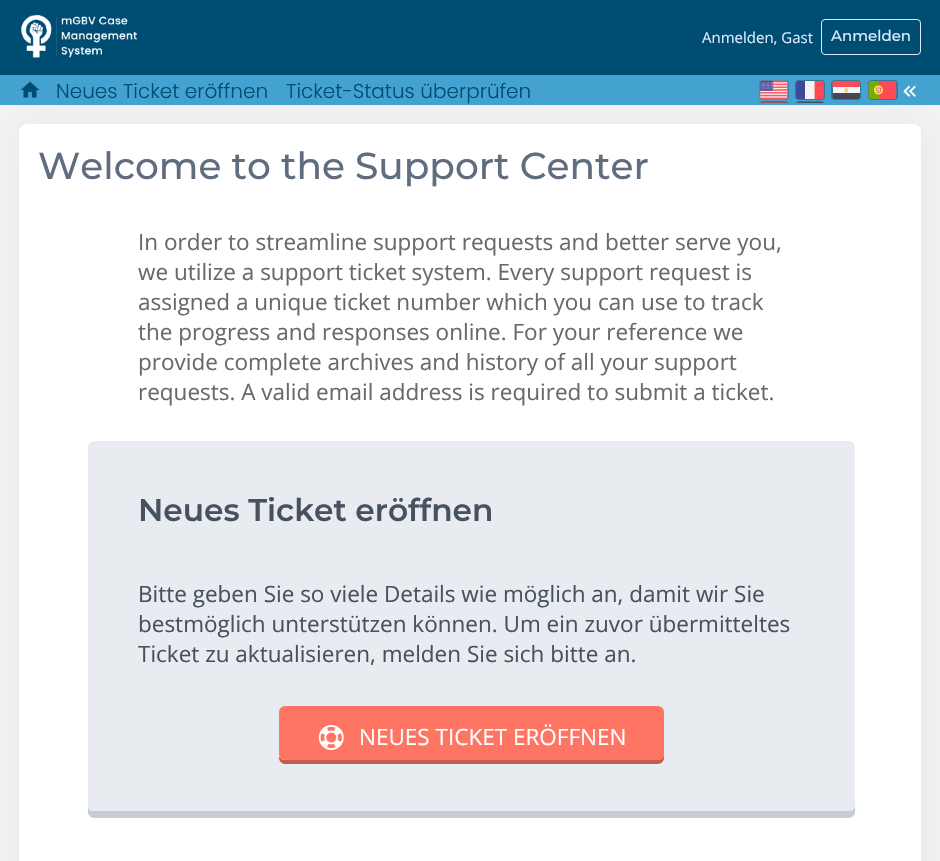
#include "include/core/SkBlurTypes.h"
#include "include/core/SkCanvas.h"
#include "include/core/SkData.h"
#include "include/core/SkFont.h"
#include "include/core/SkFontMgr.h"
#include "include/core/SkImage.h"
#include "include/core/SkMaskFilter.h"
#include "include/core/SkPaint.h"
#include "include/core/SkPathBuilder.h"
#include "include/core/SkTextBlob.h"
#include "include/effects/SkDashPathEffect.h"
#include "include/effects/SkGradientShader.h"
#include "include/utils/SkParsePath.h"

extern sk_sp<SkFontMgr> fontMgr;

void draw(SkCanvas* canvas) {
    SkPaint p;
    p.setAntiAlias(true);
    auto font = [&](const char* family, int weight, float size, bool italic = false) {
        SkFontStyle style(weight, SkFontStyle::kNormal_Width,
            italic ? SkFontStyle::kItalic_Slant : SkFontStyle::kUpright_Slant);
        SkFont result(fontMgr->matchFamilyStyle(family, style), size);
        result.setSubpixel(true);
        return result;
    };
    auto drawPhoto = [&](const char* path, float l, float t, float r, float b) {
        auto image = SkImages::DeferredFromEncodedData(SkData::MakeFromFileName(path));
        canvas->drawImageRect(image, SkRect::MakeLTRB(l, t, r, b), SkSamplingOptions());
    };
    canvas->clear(0xFFF3F3F5);
    p.setColor(0x0D000000);
    p.setMaskFilter(SkMaskFilter::MakeBlur(kNormal_SkBlurStyle, 19));
    canvas->drawRoundRect(SkRect::MakeLTRB(20, 126, 923, 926), 8, 8, p);
    p.setMaskFilter(nullptr);
    p.setColor(0xFF004D73);
    canvas->drawRect(SkRect::MakeLTRB(0, 0, 940, 75), p);
    drawPhoto("media/1.png", 21, 15, 138, 58);
    auto font1 = font("Open Sans", 400, 15);
    p.setColor(0xFFDBEBFA);
    canvas->drawString("Anmelden, Gast", 702, 43, font1, p);
    p.setStyle(SkPaint::kStroke_Style);
    p.setStrokeWidth(1);
    canvas->drawRoundRect(SkRect::MakeLTRB(821.5f, 19.5f, 920.5f, 54.5f), 3.5f, 3.5f, p);
    auto font2 = font("Montserrat", 500, 15);
    p.setStyle(SkPaint::kFill_Style);
    canvas->drawString("Anmelden", 831, 41, font2, p);
    p.setColor(0xFF44A2D0);
    canvas->drawRect(SkRect::MakeLTRB(0, 75, 940, 105), p);
    drawPhoto("media/2.png", 20, 81, 40, 98);
    auto font3 = font("Poppins", 300, 20);
    p.setColor(0xFF004D73);
    canvas->drawString("Neues Ticket eröffnen", 56, 98, font3, p);
    canvas->drawString("Ticket-Status überprüfen", 286, 98, font3, p);
    p.setColor(0xFF32789A);
    canvas->drawRoundRect(SkRect::MakeLTRB(759, 80, 789, 100), 4, 4, p);
    drawPhoto("media/3.png", 759, 80, 789, 100);
    canvas->drawRoundRect(SkRect::MakeLTRB(795, 80, 825, 100), 4, 4, p);
    drawPhoto("media/4.png", 796, 81, 824, 99);
    canvas->drawRoundRect(SkRect::MakeLTRB(831, 80, 861, 100), 4, 4, p);
    drawPhoto("media/5.png", 832, 81, 860, 99);
    canvas->drawRoundRect(SkRect::MakeLTRB(868, 80, 898, 100), 4, 4, p);
    drawPhoto("media/6.png", 868, 81, 897, 99);
    canvas->drawPath(SkPathBuilder().moveTo(763, 101).lineTo(785, 101).cubicTo(787, 101, 789, 103, 789, 105).lineTo(789, 103).lineTo(759, 103).lineTo(759, 105).cubicTo(759, 103, 761, 101, 763, 101).close().detach(), p);
    drawPhoto("media/7.png", 760, 102, 787, 103);
    canvas->drawPath(SkPathBuilder().moveTo(799, 101).lineTo(821, 101).cubicTo(823, 101, 825, 103, 825, 105).lineTo(825, 103).lineTo(795, 103).lineTo(795, 105).cubicTo(795, 103, 797, 101, 799, 101).close().detach(), p);
    drawPhoto("media/8.png", 797, 102, 823, 103);
    drawPhoto("media/9.png", 903, 85, 916, 97);
    p.setColor(0xFFFFFFFF);
    canvas->drawRoundRect(SkRect::MakeLTRB(19, 124, 921, 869), 8, 8, p);
    auto font4 = font("Montserrat", 500, 37.5f);
    p.setColor(0xFF606D7F);
    canvas->drawString("Welcome to the Support Center", 38, 179, font4, p);
    auto font5 = font("Open Sans", 400, 22.5f);
    p.setColor(0xFF696969);
    {
        const struct { const char* s; float x, y; } items[] = {
            {"In order to streamline support requests and better serve you,", 138, 250},
            {"we utilize a support ticket system. Every support request is", 138, 280},
            {"assigned a unique ticket number which you can use to track", 138, 310},
            {"the progress and responses online. For your reference we", 138, 340},
            {"provide complete archives and history of all your support", 138, 370},
            {"requests. A valid email address is required to submit a ticket.", 138, 400},
        };
        for (auto [s, x, y] : items) {
            canvas->drawString(s, x, y, font5, p);
        }
    }
    p.setColor(0xFFC6CCD4);
    canvas->drawPath(SkPathBuilder().moveTo(88, 807).lineTo(88, 812).cubicTo(88, 815, 91, 818, 94, 818).lineTo(849, 818).cubicTo(852, 818, 855, 815, 855, 812).lineTo(855, 805).cubicTo(855, 808, 852, 811, 849, 811).lineTo(94, 811).cubicTo(91, 811, 89, 810, 88, 807).close().detach(), p);
    p.setColor(0xFFE8EBEF);
    canvas->drawRoundRect(SkRect::MakeLTRB(88, 441, 855, 811), 6, 6, p);
    auto font6 = font("Montserrat", 600, 31.25f);
    p.setColor(0xFF475260);
    canvas->drawString("Neues Ticket eröffnen", 138, 521, font6, p);
    {
        const struct { const char* s; float x, y; } items[] = {
            {"Bitte geben Sie so viele Details wie möglich an, damit wir Sie", 138, 602},
            {"bestmöglich unterstützen können. Um ein zuvor übermitteltes", 138, 632},
            {"Ticket zu aktualisieren, melden Sie sich bitte an.", 138, 662},
        };
        for (auto [s, x, y] : items) {
            canvas->drawString(s, x, y, font5, p);
        }
    }
    p.setColor(0xFFC55B4E);
    canvas->drawPath(SkPathBuilder().moveTo(279, 756).lineTo(279, 758).cubicTo(279, 761, 282, 764, 285, 764).lineTo(658, 764).cubicTo(661, 764, 664, 761, 664, 758).lineTo(664, 714).lineTo(664, 754).cubicTo(664, 757, 661, 760, 658, 760).lineTo(285, 760).cubicTo(282, 760, 280, 758, 279, 756).close().detach(), p);
    p.setColor(0xFFFF7563);
    canvas->drawRoundRect(SkRect::MakeLTRB(279, 706, 664, 760), 6, 6, p);
    drawPhoto("media/10.png", 318, 725, 344, 750);
    p.setColor(0xFFFFFFFF);
    canvas->drawString("NEUES TICKET ERÖFFNEN", 359, 745, font5, p);
}
